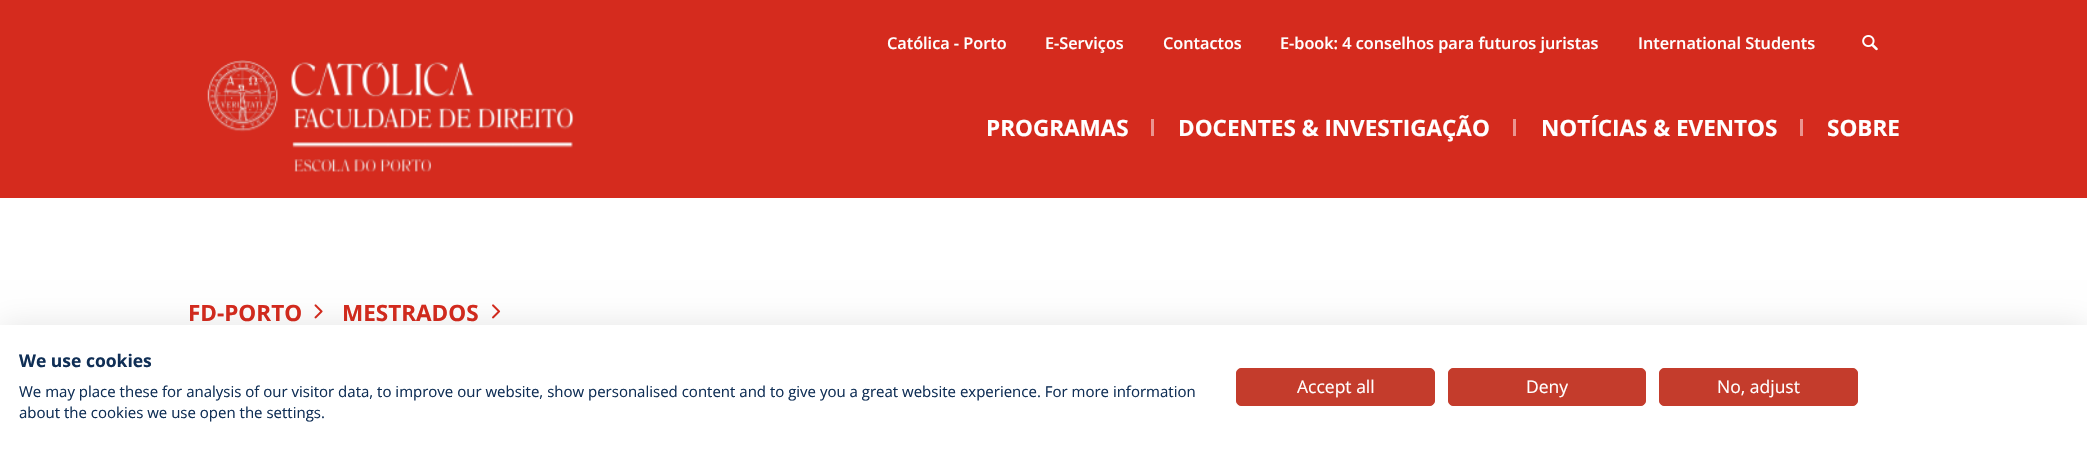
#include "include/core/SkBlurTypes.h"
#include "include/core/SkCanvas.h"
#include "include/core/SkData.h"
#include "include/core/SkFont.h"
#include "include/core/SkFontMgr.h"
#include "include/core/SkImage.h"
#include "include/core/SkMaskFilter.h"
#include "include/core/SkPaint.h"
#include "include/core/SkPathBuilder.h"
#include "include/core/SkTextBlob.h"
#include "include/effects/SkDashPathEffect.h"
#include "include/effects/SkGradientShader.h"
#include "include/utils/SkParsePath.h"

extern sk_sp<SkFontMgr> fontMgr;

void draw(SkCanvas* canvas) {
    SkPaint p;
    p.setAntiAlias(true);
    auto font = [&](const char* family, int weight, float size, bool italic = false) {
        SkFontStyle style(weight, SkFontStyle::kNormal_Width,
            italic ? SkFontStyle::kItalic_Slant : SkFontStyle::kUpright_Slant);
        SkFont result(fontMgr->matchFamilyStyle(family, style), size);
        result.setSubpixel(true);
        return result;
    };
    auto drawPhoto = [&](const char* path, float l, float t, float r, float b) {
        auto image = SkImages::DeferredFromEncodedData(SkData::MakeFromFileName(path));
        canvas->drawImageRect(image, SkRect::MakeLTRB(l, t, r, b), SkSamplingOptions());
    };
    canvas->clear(0xFFFFFFFF);
    p.setColor(0xFFD52B1E);
    canvas->drawRect(SkRect::MakeLTRB(0, 0, 2087, 198), p);
    auto font1 = font("Open Sans", 600, 16.25f);
    p.setColor(0xFFFFFFFF);
    {
        const struct { const char* s; float x, y; } items[] = {
            {"Católica - Porto", 887, 49},
            {"E-Serviços", 1045, 49},
            {"Contactos", 1163, 49},
            {"E-book: 4 conselhos para futuros juristas", 1280, 49},
            {"International Students", 1638, 49},
        };
        for (auto [s, x, y] : items) {
            canvas->drawString(s, x, y, font1, p);
        }
    }
    drawPhoto("media/1.png", 1862, 35, 1878, 51);
    drawPhoto("media/2.png", 207, 60, 574, 172);
    auto font2 = font("Open Sans", 700, 22.5f);
    canvas->drawString("PROGRAMAS", 986, 136, font2, p);
    p.setColor(0xFFEA958F);
    canvas->drawRect(SkRect::MakeLTRB(1151, 119, 1154, 136), p);
    p.setColor(0xFFFFFFFF);
    canvas->drawString("DOCENTES & INVESTIGAÇÃO", 1178, 136, font2, p);
    p.setColor(0xFFEA958F);
    canvas->drawRect(SkRect::MakeLTRB(1513, 119, 1516, 136), p);
    p.setColor(0xFFFFFFFF);
    canvas->drawString("NOTÍCIAS & EVENTOS", 1541, 136, font2, p);
    p.setColor(0xFFEA958F);
    canvas->drawRect(SkRect::MakeLTRB(1800, 119, 1803, 136), p);
    p.setColor(0xFFFFFFFF);
    canvas->drawString("SOBRE", 1827, 136, font2, p);
    p.setColor(0xFFD52B1E);
    canvas->drawString("FD-PORTO", 188, 321, font2, p);
    drawPhoto("media/3.png", 314, 304, 323, 319);
    canvas->drawString("MESTRADOS", 342, 321, font2, p);
    drawPhoto("media/4.png", 492, 304, 501, 319);
    p.setColor(0x1A000000);
    p.setMaskFilter(SkMaskFilter::MakeBlur(kNormal_SkBlurStyle, 15));
    canvas->drawRect(SkRect::MakeLTRB(0, 325, 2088, 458), p);
    p.setMaskFilter(nullptr);
    p.setColor(0xFFFFFFFF);
    canvas->drawRect(SkRect::MakeLTRB(0, 325, 2087, 457), p);
    auto font3 = font("Open Sans", 700, 17.5f);
    p.setColor(0xFF102F56);
    canvas->drawString("We use cookies", 19, 367, font3, p);
    auto font4 = font("Open Sans", 400, 15);
    canvas->drawString("We may place these for analysis of our visitor data, to improve our website, show personalised content and to give you a great website experience. For more information", 19, 397, font4, p);
    canvas->drawString("about the cookies we use open the settings.", 19, 418, font4, p);
    p.setColor(0xFFC43C2C);
    canvas->drawRoundRect(SkRect::MakeLTRB(1236.5f, 368.5f, 1434.5f, 405.5f), 4.5f, 4.5f, p);
    p.setStyle(SkPaint::kStroke_Style);
    p.setStrokeWidth(1);
    canvas->drawRoundRect(SkRect::MakeLTRB(1236.5f, 368.5f, 1434.5f, 405.5f), 4.5f, 4.5f, p);
    auto font5 = font("Open Sans", 400, 17.5f);
    p.setStyle(SkPaint::kFill_Style);
    p.setColor(0xFFFFFFFF);
    canvas->drawString("Accept all", 1297, 393, font5, p);
    p.setColor(0xFFC43C2C);
    canvas->drawRoundRect(SkRect::MakeLTRB(1448.5f, 368.5f, 1645.5f, 405.5f), 4.5f, 4.5f, p);
    p.setStyle(SkPaint::kStroke_Style);
    canvas->drawRoundRect(SkRect::MakeLTRB(1448.5f, 368.5f, 1645.5f, 405.5f), 4.5f, 4.5f, p);
    p.setStyle(SkPaint::kFill_Style);
    p.setColor(0xFFFFFFFF);
    canvas->drawString("Deny", 1526, 393, font5, p);
    p.setColor(0xFFC43C2C);
    canvas->drawRoundRect(SkRect::MakeLTRB(1659.5f, 368.5f, 1857.5f, 405.5f), 4.5f, 4.5f, p);
    p.setStyle(SkPaint::kStroke_Style);
    canvas->drawRoundRect(SkRect::MakeLTRB(1659.5f, 368.5f, 1857.5f, 405.5f), 4.5f, 4.5f, p);
    p.setStyle(SkPaint::kFill_Style);
    p.setColor(0xFFFFFFFF);
    canvas->drawString("No, adjust", 1717, 393, font5, p);
}
